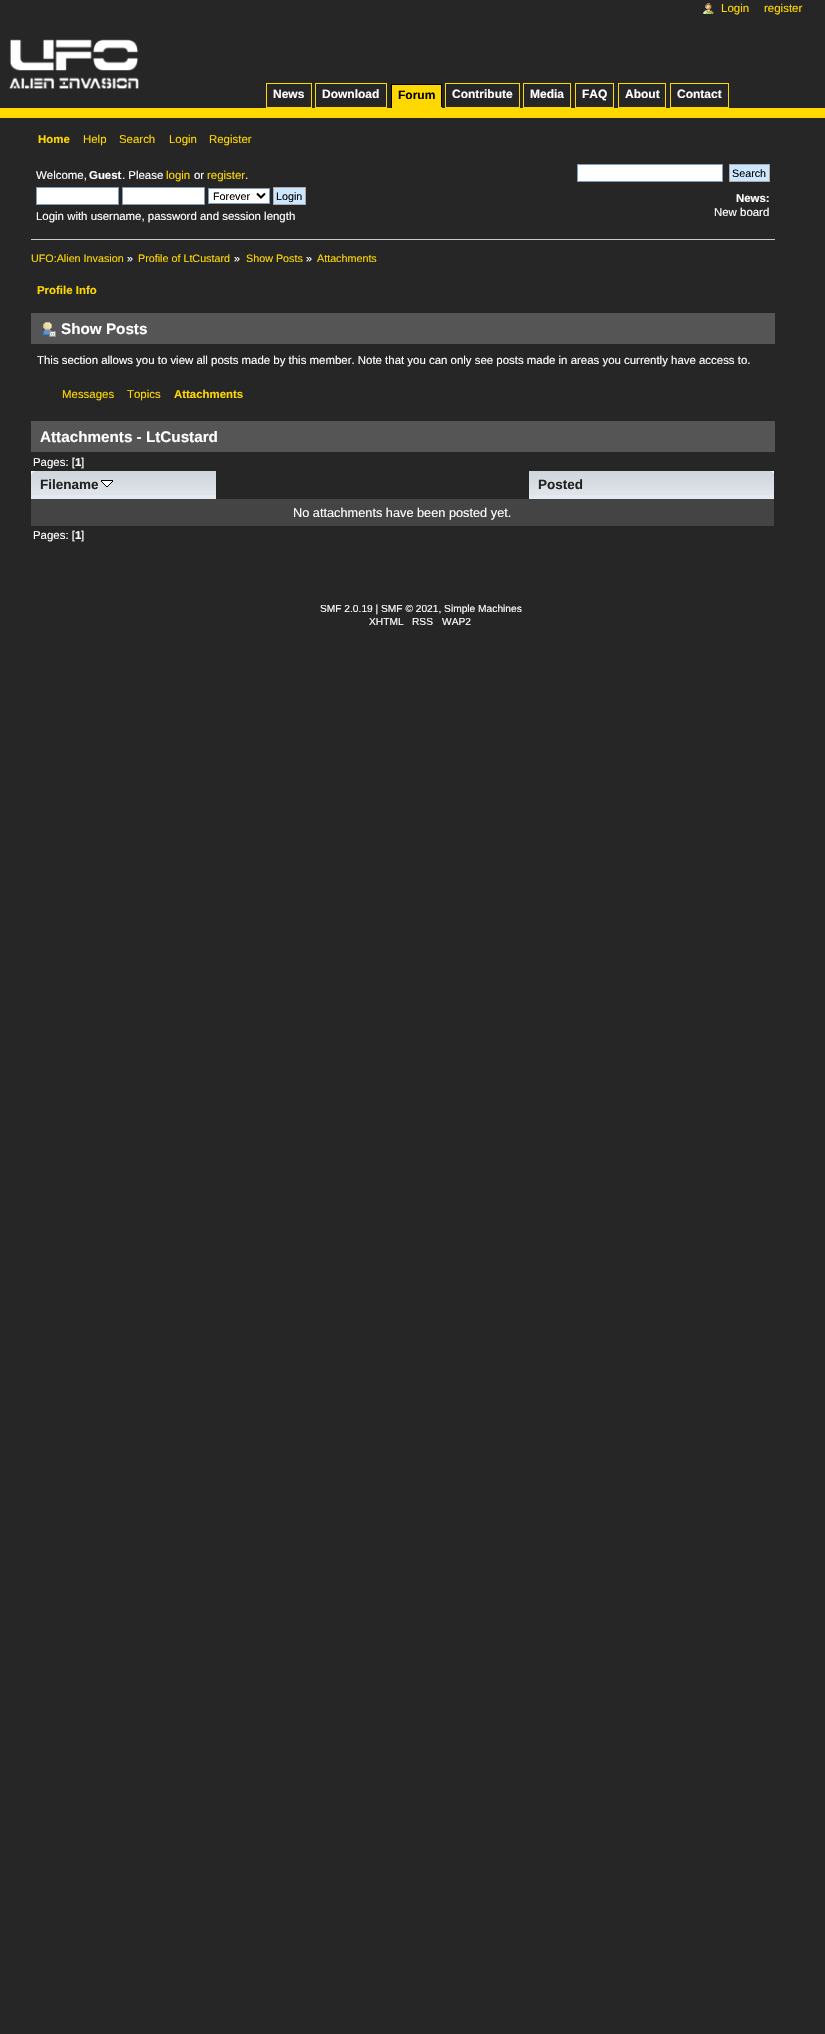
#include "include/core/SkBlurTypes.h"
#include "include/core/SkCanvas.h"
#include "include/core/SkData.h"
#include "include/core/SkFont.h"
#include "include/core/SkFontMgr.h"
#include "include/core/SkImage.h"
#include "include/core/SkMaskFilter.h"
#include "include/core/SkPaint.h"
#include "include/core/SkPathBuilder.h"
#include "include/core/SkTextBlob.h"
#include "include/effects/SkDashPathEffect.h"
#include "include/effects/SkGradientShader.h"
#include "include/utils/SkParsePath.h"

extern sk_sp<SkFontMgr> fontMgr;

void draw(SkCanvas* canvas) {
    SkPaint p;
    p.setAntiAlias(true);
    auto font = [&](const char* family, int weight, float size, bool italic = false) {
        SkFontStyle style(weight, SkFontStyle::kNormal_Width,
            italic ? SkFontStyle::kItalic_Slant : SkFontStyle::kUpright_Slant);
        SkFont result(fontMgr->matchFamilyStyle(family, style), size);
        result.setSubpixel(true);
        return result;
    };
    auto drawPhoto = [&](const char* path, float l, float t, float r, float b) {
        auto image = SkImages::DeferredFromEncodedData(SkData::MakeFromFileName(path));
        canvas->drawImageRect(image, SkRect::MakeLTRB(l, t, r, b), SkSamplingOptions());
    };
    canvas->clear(0xFF262626);
    drawPhoto("media/1.png", 703, 3, 714, 14);
    auto font1 = font("Liberation Sans", 400, 11.5f);
    p.setColor(0xFFFFD800);
    canvas->drawString("Login", 721, 12, font1, p);
    canvas->drawString("register", 764, 12, font1, p);
    drawPhoto("media/2.png", 9, 39, 139, 89);
    canvas->drawRect(SkRect::MakeLTRB(0, 108, 825, 118), p);
    p.setStyle(SkPaint::kStroke_Style);
    p.setStrokeWidth(1);
    canvas->drawRect(SkRect::MakeLTRB(266.5f, 83.5f, 311.5f, 107.5f), p);
    auto font2 = font("Liberation Sans", 700, 12);
    p.setStyle(SkPaint::kFill_Style);
    p.setColor(0xFFFFFFFF);
    canvas->drawString("News", 273, 98, font2, p);
    p.setStyle(SkPaint::kStroke_Style);
    p.setColor(0xFFFFD800);
    canvas->drawRect(SkRect::MakeLTRB(315.5f, 83.5f, 386.5f, 107.5f), p);
    p.setStyle(SkPaint::kFill_Style);
    p.setColor(0xFFFFFFFF);
    canvas->drawString("Download", 322, 98, font2, p);
    p.setColor(0xFFFFD800);
    canvas->drawRect(SkRect::MakeLTRB(392, 85, 441, 107), p);
    p.setColor(0xFF000000);
    canvas->drawString("Forum", 398, 99, font2, p);
    {
        const struct { float l, t, r, b; SkColor color; } items[] = {
            {391, 84, 442, 85, 0xFF000000},
            {441, 84, 442, 108, 0xFF000000},
            {391, 107, 442, 108, 0xFFFFD800},
            {391, 84, 392, 108, 0xFF000000},
        };
        for (auto [l, t, r, b, color] : items) {
            p.setColor(color);
            canvas->drawRect(SkRect::MakeLTRB(l, t, r, b), p);
        }
    }
    p.setStyle(SkPaint::kStroke_Style);
    p.setColor(0xFFFFD800);
    canvas->drawRect(SkRect::MakeLTRB(445.5f, 83.5f, 519.5f, 107.5f), p);
    p.setStyle(SkPaint::kFill_Style);
    p.setColor(0xFFFFFFFF);
    canvas->drawString("Contribute", 452, 98, font2, p);
    p.setStyle(SkPaint::kStroke_Style);
    p.setColor(0xFFFFD800);
    canvas->drawRect(SkRect::MakeLTRB(523.5f, 83.5f, 570.5f, 107.5f), p);
    p.setStyle(SkPaint::kFill_Style);
    p.setColor(0xFFFFFFFF);
    canvas->drawString("Media", 530, 98, font2, p);
    p.setStyle(SkPaint::kStroke_Style);
    p.setColor(0xFFFFD800);
    canvas->drawRect(SkRect::MakeLTRB(575.5f, 83.5f, 613.5f, 107.5f), p);
    p.setStyle(SkPaint::kFill_Style);
    p.setColor(0xFFFFFFFF);
    canvas->drawString("FAQ", 582, 98, font2, p);
    p.setStyle(SkPaint::kStroke_Style);
    p.setColor(0xFFFFD800);
    canvas->drawRect(SkRect::MakeLTRB(618.5f, 83.5f, 665.5f, 107.5f), p);
    p.setStyle(SkPaint::kFill_Style);
    p.setColor(0xFFFFFFFF);
    canvas->drawString("About", 625, 98, font2, p);
    p.setStyle(SkPaint::kStroke_Style);
    p.setColor(0xFFFFD800);
    canvas->drawRect(SkRect::MakeLTRB(670.5f, 83.5f, 728.5f, 107.5f), p);
    p.setStyle(SkPaint::kFill_Style);
    p.setColor(0xFFFFFFFF);
    canvas->drawString("Contact", 677, 98, font2, p);
    auto font3 = font("Liberation Sans", 700, 11.43f);
    p.setColor(0xFFFFD800);
    canvas->drawString("Home", 38, 143, font3, p);
    auto font4 = font("Liberation Sans", 400, 11.43f);
    {
        const struct { const char* s; float x, y; } items[] = {
            {"Help", 83, 143},
            {"Search", 119, 143},
            {"Login", 169, 143},
            {"Register", 209, 143},
        };
        for (auto [s, x, y] : items) {
            canvas->drawString(s, x, y, font4, p);
        }
    }
    p.setColor(0xFFFFFFFF);
    canvas->drawString("Welcome,", 36, 179, font4, p);
    canvas->drawString("Guest", 89, 179, font3, p);
    canvas->drawString(". Please", 122, 179, font4, p);
    p.setColor(0xFFFFD800);
    canvas->drawString("login", 166, 179, font4, p);
    p.setColor(0xFFFFFFFF);
    canvas->drawString("or", 194, 179, font4, p);
    p.setColor(0xFFFFD800);
    canvas->drawString("register", 207, 179, font4, p);
    p.setColor(0xFFFFFFFF);
    canvas->drawString(".", 245, 179, font4, p);
    canvas->drawRect(SkRect::MakeLTRB(36.5f, 187.5f, 118.5f, 204.5f), p);
    p.setStyle(SkPaint::kStroke_Style);
    p.setColor(0xFF7F9DB9);
    canvas->drawRect(SkRect::MakeLTRB(36.5f, 187.5f, 118.5f, 204.5f), p);
    p.setStyle(SkPaint::kFill_Style);
    p.setColor(0xFFFFFFFF);
    canvas->drawRect(SkRect::MakeLTRB(122.5f, 187.5f, 204.5f, 204.5f), p);
    p.setStyle(SkPaint::kStroke_Style);
    p.setColor(0xFF7F9DB9);
    canvas->drawRect(SkRect::MakeLTRB(122.5f, 187.5f, 204.5f, 204.5f), p);
    p.setStyle(SkPaint::kFill_Style);
    p.setColor(0xFFFFFFFF);
    canvas->drawRect(SkRect::MakeLTRB(208.5f, 188.5f, 269.5f, 203.5f), p);
    p.setStyle(SkPaint::kStroke_Style);
    p.setColor(0xFF7F9DB9);
    canvas->drawRect(SkRect::MakeLTRB(208.5f, 188.5f, 269.5f, 203.5f), p);
    p.setStrokeWidth(2);
    p.setColor(0xFF000000);
    canvas->drawPath(SkPathBuilder().moveTo(257, 193.5f).lineTo(261, 197.5f).lineTo(265, 193.5f).detach(), p);
    auto font5 = font("Liberation Sans", 400, 10.75f);
    p.setStyle(SkPaint::kFill_Style);
    canvas->drawString("Forever", 213, 200, font5, p);
    p.setColor(0xFFCDE7FF);
    canvas->drawRect(SkRect::MakeLTRB(273.5f, 187.5f, 305.5f, 204.5f), p);
    p.setStyle(SkPaint::kStroke_Style);
    p.setStrokeWidth(1);
    p.setColor(0xFFAAAAAA);
    canvas->drawRect(SkRect::MakeLTRB(273.5f, 187.5f, 305.5f, 204.5f), p);
    p.setStyle(SkPaint::kFill_Style);
    p.setColor(0xFF000000);
    canvas->drawString("Login", 276, 200, font5, p);
    p.setColor(0xFFFFFFFF);
    canvas->drawString("Login with username, password and session length", 36, 220, font4, p);
    canvas->drawRect(SkRect::MakeLTRB(577.5f, 164.5f, 722.5f, 181.5f), p);
    p.setStyle(SkPaint::kStroke_Style);
    p.setColor(0xFF7F9DB9);
    canvas->drawRect(SkRect::MakeLTRB(577.5f, 164.5f, 722.5f, 181.5f), p);
    p.setStyle(SkPaint::kFill_Style);
    p.setColor(0xFFCDE7FF);
    canvas->drawRect(SkRect::MakeLTRB(729.5f, 164.5f, 769.5f, 181.5f), p);
    p.setStyle(SkPaint::kStroke_Style);
    p.setColor(0xFFAAAAAA);
    canvas->drawRect(SkRect::MakeLTRB(729.5f, 164.5f, 769.5f, 181.5f), p);
    p.setStyle(SkPaint::kFill_Style);
    p.setColor(0xFF000000);
    canvas->drawString("Search", 732, 177, font5, p);
    p.setColor(0xFFFFFFFF);
    canvas->drawString("News:", 736, 202, font3, p);
    canvas->drawString("New board", 714, 216, font4, p);
    p.setColor(0xFFCCCCCC);
    canvas->drawRect(SkRect::MakeLTRB(31, 239, 775, 240), p);
    p.setColor(0xFFFFD800);
    canvas->drawString("UFO:Alien Invasion", 31, 262, font5, p);
    p.setColor(0xFFFFFFFF);
    canvas->drawString("»", 127, 262, font5, p);
    p.setColor(0xFFFFD800);
    canvas->drawString("Profile of LtCustard", 138, 262, font5, p);
    p.setColor(0xFFFFFFFF);
    canvas->drawString("»", 234, 262, font5, p);
    p.setColor(0xFFFFD800);
    canvas->drawString("Show Posts", 246, 262, font5, p);
    p.setColor(0xFFFFFFFF);
    canvas->drawString("»", 306, 262, font5, p);
    p.setColor(0xFFFFD800);
    canvas->drawString("Attachments", 317, 262, font5, p);
    canvas->drawString("Profile Info", 37, 294, font3, p);
    p.setColor(0xFF555555);
    canvas->drawRect(SkRect::MakeLTRB(31, 313, 775, 344), p);
    drawPhoto("media/3.png", 42, 322, 56, 337);
    auto font6 = font("Liberation Sans", 700, 15.25f);
    p.setColor(0xFFFFFFFF);
    canvas->drawString("Show Posts", 61, 334, font6, p);
    canvas->drawString("This section allows you to view all posts made by this member. Note that you can only see posts made in areas you currently have access to.", 37, 364, font4, p);
    p.setColor(0xFFFFD800);
    canvas->drawString("Messages", 62, 398, font4, p);
    canvas->drawString("Topics", 127, 398, font4, p);
    canvas->drawString("Attachments", 174, 398, font3, p);
    p.setColor(0xFF555555);
    canvas->drawRect(SkRect::MakeLTRB(31, 421, 775, 452), p);
    p.setColor(0xFFFFFFFF);
    canvas->drawString("Attachments - LtCustard", 40, 442, font6, p);
    canvas->drawString("Pages: [", 33, 466, font4, p);
    canvas->drawString("1", 75, 466, font3, p);
    canvas->drawString("]", 81, 466, font4, p);
    p.setColor(0xFFE3E9EF);
    canvas->drawRect(SkRect::MakeLTRB(31, 495, 216, 499), p);
    drawPhoto("media/4.png", 31, 471, 216, 495);
    auto font7 = font("Liberation Sans", 700, 13.5f);
    p.setColor(0xFF222222);
    canvas->drawString("Filename", 40, 489, font7, p);
    drawPhoto("media/5.png", 101, 480, 113, 487);
    p.setColor(0xFFE3E9EF);
    canvas->drawRect(SkRect::MakeLTRB(529, 495, 774, 499), p);
    drawPhoto("media/6.png", 529, 471, 774, 495);
    p.setColor(0xFF222222);
    canvas->drawString("Posted", 538, 489, font7, p);
    p.setColor(0xFF444444);
    canvas->drawRect(SkRect::MakeLTRB(31, 499, 774, 526), p);
    auto font8 = font("Liberation Sans", 400, 12.75f);
    p.setColor(0xFFFFFFFF);
    canvas->drawString("No attachments have been posted yet.", 293, 517, font8, p);
    canvas->drawString("Pages: [", 33, 539, font4, p);
    canvas->drawString("1", 75, 539, font3, p);
    canvas->drawString("]", 81, 539, font4, p);
    auto font9 = font("Liberation Sans", 400, 10.2f);
    {
        const struct { const char* s; float x, y; } items[] = {
            {"SMF 2.0.19 | SMF © 2021, Simple Machines", 320, 612},
            {"XHTML", 369, 625},
            {"RSS", 412, 625},
            {"WAP2", 442, 625},
        };
        for (auto [s, x, y] : items) {
            canvas->drawString(s, x, y, font9, p);
        }
    }
}
